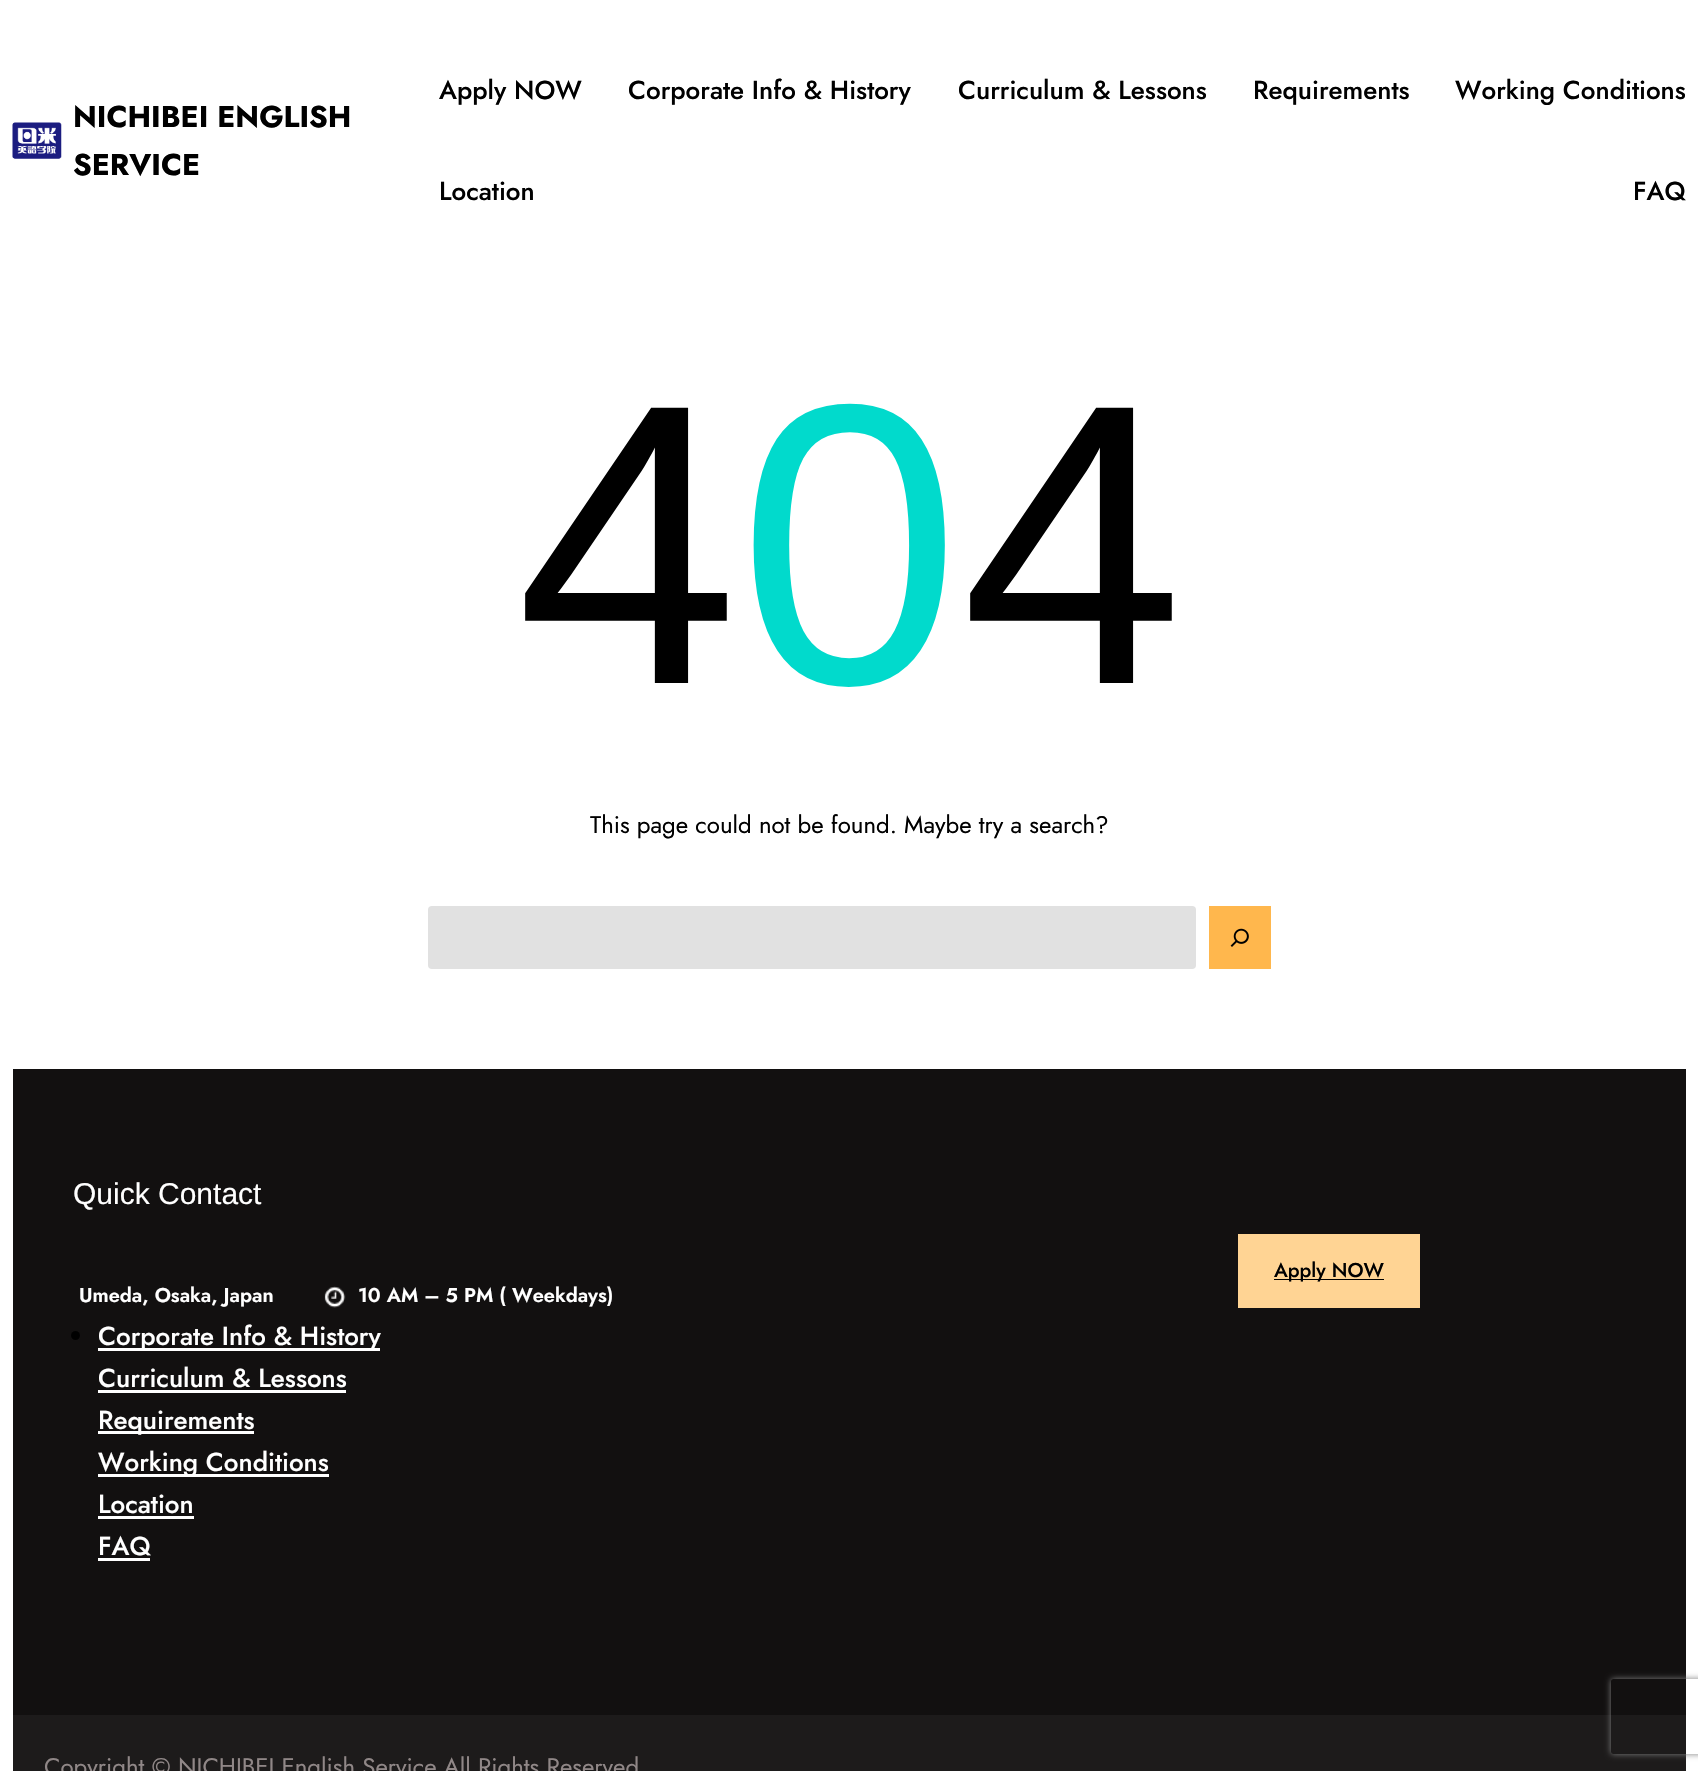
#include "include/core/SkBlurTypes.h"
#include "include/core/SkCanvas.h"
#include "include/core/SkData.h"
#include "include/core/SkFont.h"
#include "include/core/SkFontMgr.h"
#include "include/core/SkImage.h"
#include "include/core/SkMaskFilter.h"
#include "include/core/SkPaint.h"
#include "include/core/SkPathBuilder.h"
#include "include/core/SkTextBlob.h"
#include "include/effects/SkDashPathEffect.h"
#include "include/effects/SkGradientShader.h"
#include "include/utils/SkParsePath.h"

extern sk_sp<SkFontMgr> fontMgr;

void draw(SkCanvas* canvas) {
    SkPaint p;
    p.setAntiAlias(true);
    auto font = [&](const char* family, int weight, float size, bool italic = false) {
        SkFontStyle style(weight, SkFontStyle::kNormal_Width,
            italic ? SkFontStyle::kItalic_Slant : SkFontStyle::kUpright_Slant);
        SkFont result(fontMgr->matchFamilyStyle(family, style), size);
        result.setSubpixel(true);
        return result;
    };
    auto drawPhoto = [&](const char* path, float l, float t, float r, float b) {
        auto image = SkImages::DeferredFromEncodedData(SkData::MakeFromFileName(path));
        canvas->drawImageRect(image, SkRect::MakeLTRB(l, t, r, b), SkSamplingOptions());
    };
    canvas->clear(0xFFFFFFFF);
    drawPhoto("media/1.png", 12, 122, 62, 159);
    auto font1 = font("Jost", 700, 30);
    p.setColor(0xFF000000);
    canvas->drawString("NICHIBEI ENGLISH", 73, 127, font1, p);
    canvas->drawString("SERVICE", 73, 175, font1, p);
    auto font2 = font("Jost", 500, 26);
    {
        const struct { const char* s; float x, y; } items[] = {
            {"Apply NOW", 439, 99},
            {"Corporate Info & History", 628, 99},
            {"Curriculum & Lessons", 958, 99},
            {"Requirements", 1253, 99},
            {"Working Conditions", 1455, 99},
            {"Location", 439, 200},
            {"FAQ", 1633, 200},
        };
        for (auto [s, x, y] : items) {
            canvas->drawString(s, x, y, font2, p);
        }
    }
    auto font3 = font("Liberation Sans", 400, 400);
    canvas->drawString("4", 516, 683, font3, p);
    p.setColor(0xFF01DACC);
    canvas->drawString("0", 738, 683, font3, p);
    p.setColor(0xFF000000);
    canvas->drawString("4", 961, 683, font3, p);
    auto font4 = font("Jost", 400, 24);
    canvas->drawString("This page could not be found. Maybe try a search?", 590, 833, font4, p);
    p.setColor(0xFFE1E1E1);
    canvas->drawRoundRect(SkRect::MakeLTRB(428, 906, 1196, 969), 4, 4, p);
    p.setColor(0xFFFFB74D);
    canvas->drawRect(SkRect::MakeLTRB(1209, 906, 1271, 969), p);
    drawPhoto("media/2.png", 1230, 928, 1249, 947);
    p.setColor(0xFF121010);
    canvas->drawRect(SkRect::MakeLTRB(13, 1069, 1686, 1715), p);
    auto font5 = font("Liberation Sans", 400, 30);
    p.setColor(0xFFFFFFFF);
    canvas->drawString("Quick Contact", 73, 1204, font5, p);
    auto font6 = font("Jost", 600, 20);
    canvas->drawString("Umeda, Osaka, Japan", 79, 1302, font6, p);
    drawPhoto("media/3.png", 324, 1286, 346, 1308);
    canvas->drawString("10 AM – 5 PM ( Weekdays)", 358, 1302, font6, p);
    p.setColor(0xFF000000);
    canvas->drawCircle(75.5f, 1335.5f, 4.5f, p);
    p.setColor(0xFFFFFFFF);
    canvas->drawRect(SkRect::MakeLTRB(98, 1348, 380, 1351), p);
    canvas->drawString("Corporate Info & History", 98, 1345, font2, p);
    canvas->drawString("Curriculum & Lessons", 98, 1387, font2, p);
    canvas->drawRect(SkRect::MakeLTRB(98, 1390, 346, 1393), p);
    canvas->drawRect(SkRect::MakeLTRB(98, 1431, 254, 1434), p);
    canvas->drawString("Requirements", 98, 1429, font2, p);
    canvas->drawRect(SkRect::MakeLTRB(98, 1474, 329, 1477), p);
    canvas->drawString("Working Conditions", 98, 1471, font2, p);
    canvas->drawString("Location", 98, 1513, font2, p);
    canvas->drawRect(SkRect::MakeLTRB(98, 1516, 194, 1519), p);
    canvas->drawString("FAQ", 98, 1555, font2, p);
    {
        const struct { float l, t, r, b; SkColor color; } items[] = {
            {98, 1558, 150, 1561, 0xFFFFFFFF},
            {1238, 1234, 1420, 1308, 0xFFFFD494},
            {1274, 1279, 1384, 1280, 0xFF000000},
        };
        for (auto [l, t, r, b, color] : items) {
            p.setColor(color);
            canvas->drawRect(SkRect::MakeLTRB(l, t, r, b), p);
        }
    }
    auto font7 = font("Jost", 500, 20);
    canvas->drawString("Apply NOW", 1274, 1277, font7, p);
    p.setColor(0xFF1D1B1B);
    canvas->drawRect(SkRect::MakeLTRB(13, 1715, 1686, 1771), p);
    p.setColor(0xFF908787);
    canvas->drawString("Copyright © NICHIBEI English Service All Rights Reserved", 44, 1775, font4, p);
    canvas->save();
    canvas->clipPath(SkPathBuilder(SkPathFillType::kEvenOdd).moveTo(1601, 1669).lineTo(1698, 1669).lineTo(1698, 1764).lineTo(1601, 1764).close().moveTo(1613.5f, 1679).lineTo(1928.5f, 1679).cubicTo(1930, 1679, 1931, 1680, 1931, 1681.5f).lineTo(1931, 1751.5f).cubicTo(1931, 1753, 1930, 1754, 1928.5f, 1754).lineTo(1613.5f, 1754).cubicTo(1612, 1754, 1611, 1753, 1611, 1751.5f).lineTo(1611, 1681.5f).cubicTo(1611, 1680, 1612, 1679, 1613.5f, 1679).close().detach(), true);
    p.setColor(0xFF808080);
    p.setMaskFilter(SkMaskFilter::MakeBlur(kNormal_SkBlurStyle, 3));
    canvas->drawRoundRect(SkRect::MakeLTRB(1611, 1679, 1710, 1754), 2.5f, 2.5f, p);
    p.setMaskFilter(nullptr);
    canvas->restore();
}
